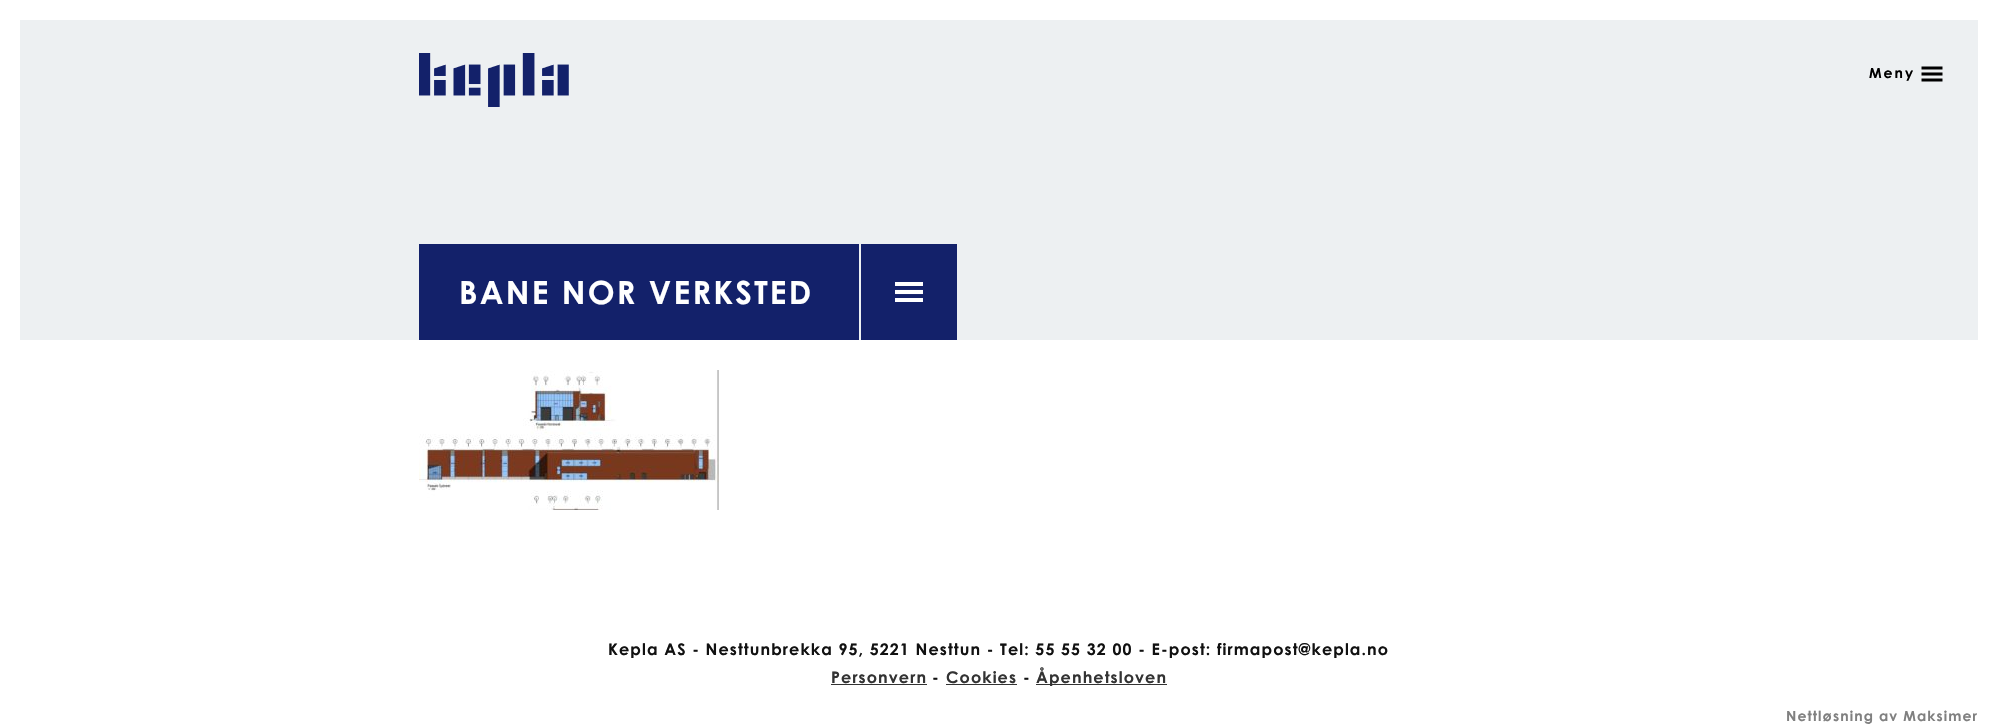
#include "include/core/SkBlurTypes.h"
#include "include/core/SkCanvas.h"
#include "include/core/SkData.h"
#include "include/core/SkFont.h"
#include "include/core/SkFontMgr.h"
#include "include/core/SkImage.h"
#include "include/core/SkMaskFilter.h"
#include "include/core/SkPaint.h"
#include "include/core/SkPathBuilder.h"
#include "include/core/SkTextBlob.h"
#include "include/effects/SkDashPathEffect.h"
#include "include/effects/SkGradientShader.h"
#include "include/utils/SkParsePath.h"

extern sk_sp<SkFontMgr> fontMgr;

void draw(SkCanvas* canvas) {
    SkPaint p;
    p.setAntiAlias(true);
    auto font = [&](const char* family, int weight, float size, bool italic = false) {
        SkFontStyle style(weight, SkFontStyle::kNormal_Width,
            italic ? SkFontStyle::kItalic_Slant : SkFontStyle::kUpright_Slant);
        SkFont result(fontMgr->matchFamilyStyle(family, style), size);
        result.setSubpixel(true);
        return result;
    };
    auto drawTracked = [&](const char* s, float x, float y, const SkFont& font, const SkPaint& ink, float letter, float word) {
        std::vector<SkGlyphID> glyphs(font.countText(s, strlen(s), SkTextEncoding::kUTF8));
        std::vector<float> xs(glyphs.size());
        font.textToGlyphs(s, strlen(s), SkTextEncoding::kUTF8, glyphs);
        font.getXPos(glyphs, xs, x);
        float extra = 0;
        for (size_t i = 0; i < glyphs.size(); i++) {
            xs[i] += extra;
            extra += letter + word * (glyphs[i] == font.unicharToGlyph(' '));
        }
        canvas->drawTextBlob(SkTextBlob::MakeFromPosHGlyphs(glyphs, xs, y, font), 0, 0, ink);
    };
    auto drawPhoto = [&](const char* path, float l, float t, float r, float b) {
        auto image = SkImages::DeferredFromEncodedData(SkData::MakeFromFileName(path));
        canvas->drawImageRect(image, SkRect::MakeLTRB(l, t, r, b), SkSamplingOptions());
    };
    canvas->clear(0xFFFFFFFF);
    p.setColor(0xFFEDF0F2);
    canvas->drawRect(SkRect::MakeLTRB(20, 20, 1978, 340), p);
    drawPhoto("media/1.png", 419, 53, 569, 107);
    auto font1 = font("Century Gothic", 700, 14);
    p.setColor(0xFF000000);
    drawTracked("Meny", 1869, 78, font1, p, 2, 0);
    drawPhoto("media/2.png", 1921, 66, 1943, 82);
    p.setColor(0xFF13216A);
    canvas->drawRect(SkRect::MakeLTRB(419, 244, 859, 340), p);
    auto font2 = font("Century Gothic", 700, 32);
    p.setColor(0xFFFFFFFF);
    drawTracked("BANE NOR VERKSTED", 459, 304, font2, p, 2.25f, 0);
    p.setColor(0xFF13216A);
    canvas->drawRect(SkRect::MakeLTRB(861, 244, 957, 340), p);
    drawPhoto("media/3.png", 895, 282, 923, 302);
    drawPhoto("media/4.png", 419, 370, 719, 510);
    auto font3 = font("Century Gothic", 700, 16);
    p.setColor(0xFF111111);
    drawTracked("Kepla AS - Nesttunbrekka 95, 5221 Nesttun - Tel: 55 55 32 00 - E-post: firmapost@kepla.no", 608, 655, font3, p, 1.1f, 0);
    p.setColor(0xFF333333);
    drawTracked("Personvern", 831, 683, font3, p, 1.1f, 0);
    canvas->drawRect(SkRect::MakeLTRB(831, 684, 927, 685), p);
    p.setColor(0xFF111111);
    drawTracked("-", 932, 683, font3, p, 1.1f, 0);
    p.setColor(0xFF333333);
    drawTracked("Cookies", 946, 683, font3, p, 1.1f, 0);
    canvas->drawRect(SkRect::MakeLTRB(946, 684, 1017, 685), p);
    p.setColor(0xFF111111);
    drawTracked("-", 1023, 683, font3, p, 1.1f, 0);
    p.setColor(0xFF333333);
    canvas->drawRect(SkRect::MakeLTRB(1036, 684, 1167, 685), p);
    drawTracked("Åpenhetsloven", 1036, 683, font3, p, 1.1f, 0);
    p.setColor(0xFF808080);
    drawTracked("Nettløsning av Maksimer", 1786, 721, font1, p, 1.1f, 0);
}
